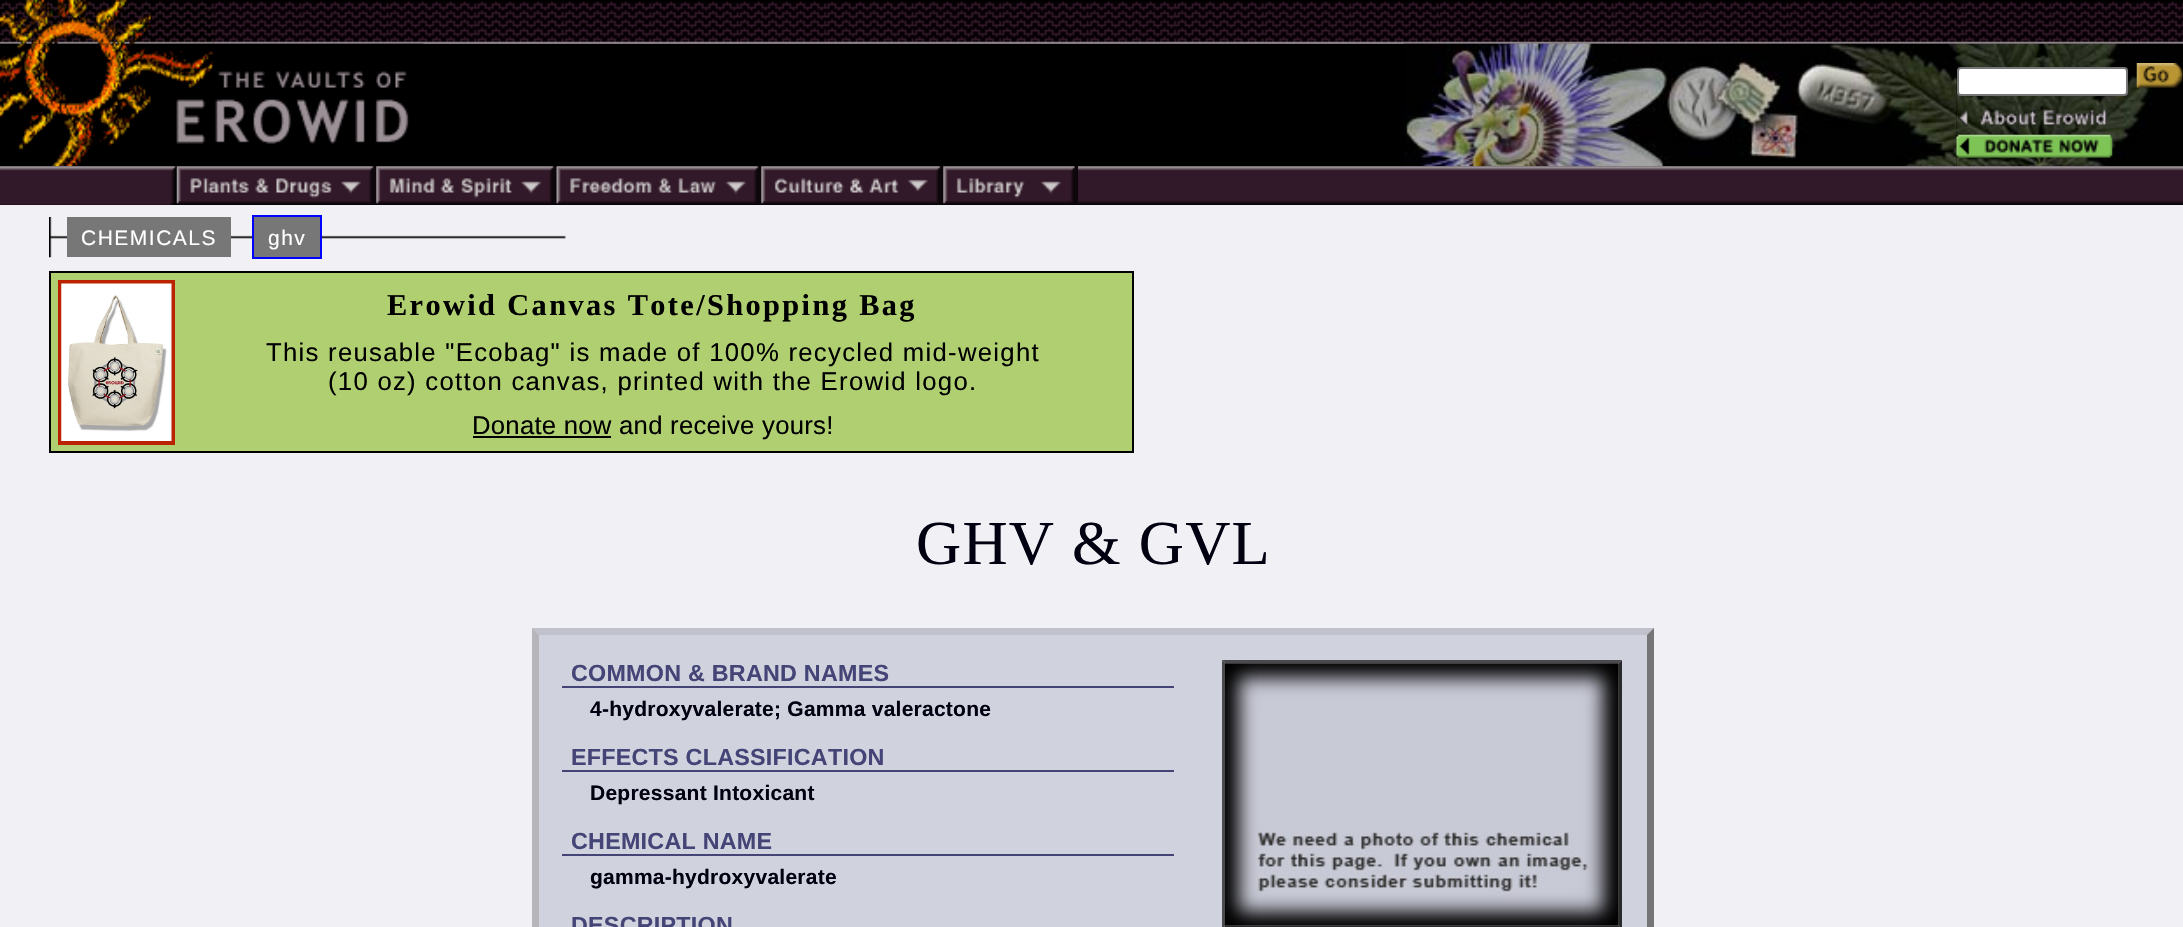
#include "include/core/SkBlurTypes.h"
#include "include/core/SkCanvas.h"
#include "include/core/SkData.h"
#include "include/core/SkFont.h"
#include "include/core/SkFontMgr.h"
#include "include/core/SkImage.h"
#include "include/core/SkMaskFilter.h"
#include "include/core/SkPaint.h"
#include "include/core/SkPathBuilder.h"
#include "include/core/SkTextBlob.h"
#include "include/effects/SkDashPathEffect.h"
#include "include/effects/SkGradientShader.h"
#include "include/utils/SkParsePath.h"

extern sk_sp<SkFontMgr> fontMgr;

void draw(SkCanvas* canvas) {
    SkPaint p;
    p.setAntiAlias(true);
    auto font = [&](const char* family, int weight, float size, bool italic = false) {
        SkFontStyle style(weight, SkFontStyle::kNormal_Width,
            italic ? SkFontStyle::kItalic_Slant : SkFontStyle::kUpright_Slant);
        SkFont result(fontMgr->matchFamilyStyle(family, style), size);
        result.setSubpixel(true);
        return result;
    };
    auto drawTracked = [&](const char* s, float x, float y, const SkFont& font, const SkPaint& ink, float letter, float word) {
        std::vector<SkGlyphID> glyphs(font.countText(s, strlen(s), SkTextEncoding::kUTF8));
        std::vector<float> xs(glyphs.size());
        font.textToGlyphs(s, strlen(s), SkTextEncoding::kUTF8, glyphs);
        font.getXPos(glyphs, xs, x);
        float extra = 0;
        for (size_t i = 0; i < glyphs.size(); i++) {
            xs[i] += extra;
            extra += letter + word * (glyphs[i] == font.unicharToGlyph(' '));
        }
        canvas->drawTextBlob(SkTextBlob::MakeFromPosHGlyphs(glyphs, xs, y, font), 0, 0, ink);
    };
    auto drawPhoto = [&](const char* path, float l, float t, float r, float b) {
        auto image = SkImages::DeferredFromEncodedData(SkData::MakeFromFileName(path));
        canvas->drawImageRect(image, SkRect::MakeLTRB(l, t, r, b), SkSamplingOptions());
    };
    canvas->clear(0xFF000000);
    drawPhoto("media/2.png", 213, 1, 2183, 44);
    drawPhoto("media/1.png", 0, 0, 214, 44);
    drawPhoto("media/3.png", 0, 43, 214, 167);
    drawPhoto("media/4.png", 213, 43, 424, 144);
    drawPhoto("media/5.png", 1403, 43, 1957, 167);
    drawPhoto("media/6.png", 1956, 43, 2183, 167);
    p.setColor(0xFFFFFFFF);
    canvas->drawRoundRect(SkRect::MakeLTRB(1958, 68, 2127, 95), 3, 3, p);
    p.setStyle(SkPaint::kStroke_Style);
    p.setStrokeWidth(2);
    p.setColor(0xFF767676);
    canvas->drawRoundRect(SkRect::MakeLTRB(1958, 68, 2127, 95), 3, 3, p);
    drawPhoto("media/7.png", 2136, 63, 2183, 88);
    drawPhoto("media/8.png", 1958, 109, 2108, 127);
    drawPhoto("media/9.png", 1956, 134, 2113, 158);
    drawPhoto("media/10.png", 0, 166, 176, 205);
    drawPhoto("media/11.png", 176, 166, 376, 205);
    drawPhoto("media/12.png", 376, 166, 557, 205);
    drawPhoto("media/13.png", 556, 166, 761, 205);
    drawPhoto("media/14.png", 761, 166, 943, 205);
    drawPhoto("media/15.png", 943, 166, 1078, 205);
    drawPhoto("media/16.png", 1078, 166, 2183, 205);
    p.setStyle(SkPaint::kFill_Style);
    p.setColor(0xFFF1F1F5);
    canvas->drawRect(SkRect::MakeLTRB(0, 205, 2183, 927), p);
    drawPhoto("media/17.png", 49, 217, 566, 258);
    p.setColor(0xFF777777);
    canvas->drawRect(SkRect::MakeLTRB(67, 217, 231, 257), p);
    auto font1 = font("Liberation Sans", 400, 21);
    p.setColor(0xFFFFFFFF);
    drawTracked("CHEMICALS", 81, 245, font1, p, 1.5f, 0);
    p.setColor(0xFF777777);
    canvas->drawRect(SkRect::MakeLTRB(253, 216, 321, 258), p);
    p.setStyle(SkPaint::kStroke_Style);
    p.setColor(0xFF0000FF);
    canvas->drawRect(SkRect::MakeLTRB(253, 216, 321, 258), p);
    p.setStyle(SkPaint::kFill_Style);
    p.setColor(0xFFFFFFFF);
    drawTracked("ghv", 268, 245, font1, p, 1.5f, 0);
    p.setColor(0xFFAFCF70);
    canvas->drawRect(SkRect::MakeLTRB(50, 272, 1133, 452), p);
    p.setStyle(SkPaint::kStroke_Style);
    p.setColor(0xFF000000);
    canvas->drawRect(SkRect::MakeLTRB(50, 272, 1133, 452), p);
    p.setStrokeWidth(4);
    p.setColor(0xFFBB2200);
    canvas->drawRect(SkRect::MakeLTRB(60, 282, 173, 443), p);
    drawPhoto("media/18.png", 61, 283, 172, 441);
    auto font2 = font("Liberation Serif", 700, 30.3f);
    p.setStyle(SkPaint::kFill_Style);
    p.setColor(0xFF000000);
    drawTracked("Erowid Canvas Tote/Shopping Bag", 387, 315, font2, p, 2.4f, 0);
    auto font3 = font("Liberation Sans", 400, 25.7f);
    drawTracked("This reusable \"Ecobag\" is made of 100% recycled mid-weight", 266, 361, font3, p, 1.28f, 0);
    drawTracked("(10 oz) cotton canvas, printed with the Erowid logo.", 328, 390, font3, p, 1.28f, 0);
    canvas->drawRect(SkRect::MakeLTRB(473, 436, 611, 438), p);
    drawTracked("Donate now and receive yours!", 472, 434, font3, p, 0.25f, 0);
    auto font4 = font("Liberation Serif", 400, 62.5f);
    p.setColor(0xFF000011);
    drawTracked("GHV & GVL", 916, 564, font4, p, 1.25f, 0);
    p.setColor(0xFFD0D2DD);
    canvas->drawRect(SkRect::MakeLTRB(532, 628, 1654, 927), p);
    p.setColor(0xFFC1C1CB);
    canvas->drawPath(SkPathBuilder().moveTo(532, 628).lineTo(1654, 628).lineTo(1647, 635).lineTo(539, 635).close().detach(), p);
    p.setColor(0xFF757578);
    canvas->drawPath(SkPathBuilder().moveTo(1654, 628).lineTo(1654, 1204).lineTo(1647, 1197).lineTo(1647, 635).close().detach(), p);
    p.setColor(0xFFB5B5BA);
    canvas->drawPath(SkPathBuilder().moveTo(532, 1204).lineTo(532, 628).lineTo(539, 635).lineTo(539, 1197).close().detach(), p);
    p.setColor(0xFF444477);
    canvas->drawRect(SkRect::MakeLTRB(562, 686, 1174, 688), p);
    auto font5 = font("Liberation Sans", 700, 23.3f);
    drawTracked("COMMON & BRAND NAMES", 571, 681, font5, p, 0.25f, 0);
    p.setColor(0xFF4A4A4C);
    canvas->drawPath(SkPathBuilder().moveTo(1222, 660).lineTo(1622, 660).lineTo(1619, 663).lineTo(1225, 663).close().detach(), p);
    p.setColor(0xFF2A2A2C);
    canvas->drawPath(SkPathBuilder().moveTo(1622, 660).lineTo(1622, 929).lineTo(1619, 926).lineTo(1619, 663).close().detach(), p);
    canvas->drawPath(SkPathBuilder().moveTo(1622, 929).lineTo(1222, 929).lineTo(1225, 926).lineTo(1619, 926).close().detach(), p);
    p.setColor(0xFF4A4A4C);
    canvas->drawPath(SkPathBuilder().moveTo(1222, 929).lineTo(1222, 660).lineTo(1225, 663).lineTo(1225, 926).close().detach(), p);
    drawPhoto("media/19.png", 1225, 663, 1619, 926);
    auto font6 = font("Liberation Sans", 700, 21);
    p.setColor(0xFF000011);
    drawTracked("4-hydroxyvalerate; Gamma valeractone", 590, 716, font6, p, 0.25f, 0);
    p.setColor(0xFF444477);
    canvas->drawRect(SkRect::MakeLTRB(562, 770, 1174, 772), p);
    drawTracked("EFFECTS CLASSIFICATION", 571, 765, font5, p, 0.25f, 0);
    p.setColor(0xFF000011);
    drawTracked("Depressant Intoxicant", 590, 800, font6, p, 0.25f, 0);
    p.setColor(0xFF444477);
    canvas->drawRect(SkRect::MakeLTRB(562, 854, 1174, 856), p);
    drawTracked("CHEMICAL NAME", 571, 849, font5, p, 0.25f, 0);
    p.setColor(0xFF000011);
    drawTracked("gamma-hydroxyvalerate", 590, 884, font6, p, 0.25f, 0);
    p.setColor(0xFF444477);
    drawTracked("DESCRIPTION", 571, 933, font5, p, 0.25f, 0);
}
